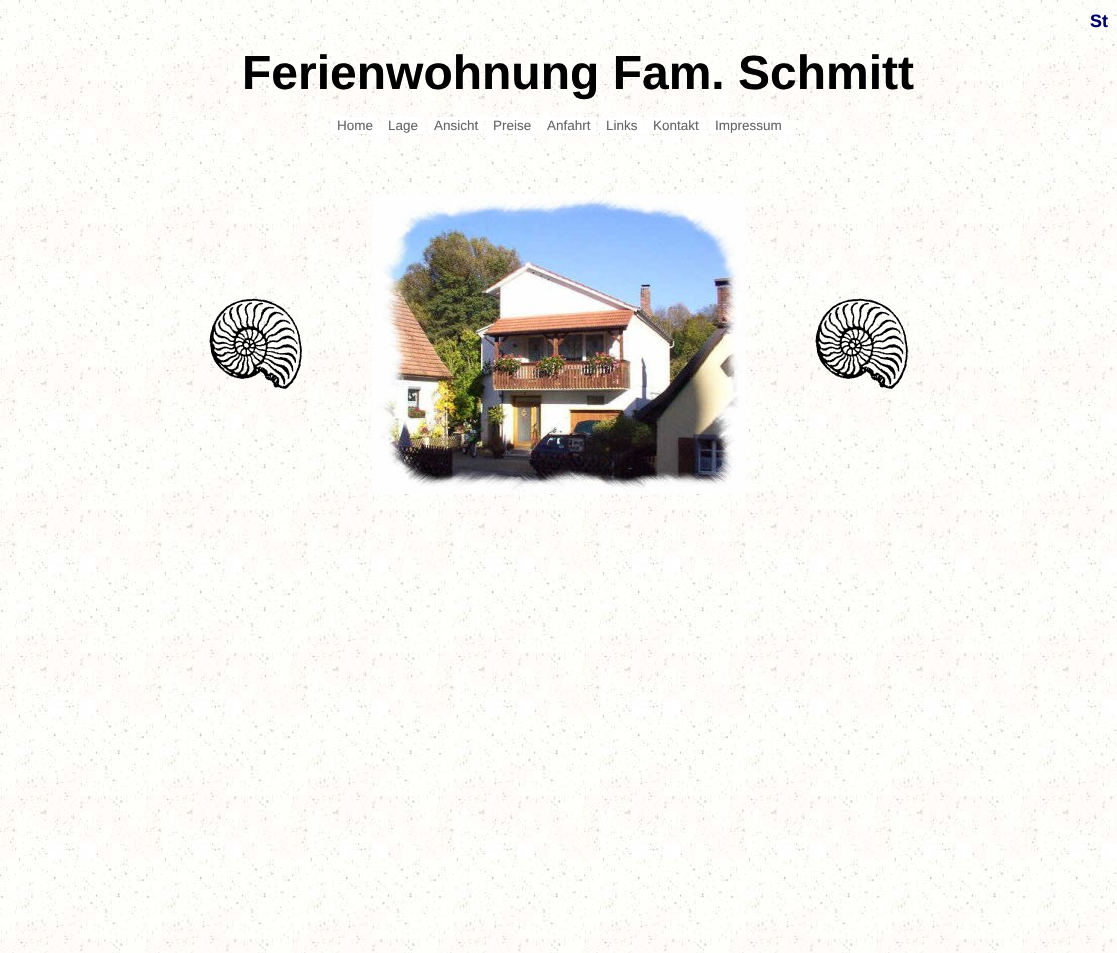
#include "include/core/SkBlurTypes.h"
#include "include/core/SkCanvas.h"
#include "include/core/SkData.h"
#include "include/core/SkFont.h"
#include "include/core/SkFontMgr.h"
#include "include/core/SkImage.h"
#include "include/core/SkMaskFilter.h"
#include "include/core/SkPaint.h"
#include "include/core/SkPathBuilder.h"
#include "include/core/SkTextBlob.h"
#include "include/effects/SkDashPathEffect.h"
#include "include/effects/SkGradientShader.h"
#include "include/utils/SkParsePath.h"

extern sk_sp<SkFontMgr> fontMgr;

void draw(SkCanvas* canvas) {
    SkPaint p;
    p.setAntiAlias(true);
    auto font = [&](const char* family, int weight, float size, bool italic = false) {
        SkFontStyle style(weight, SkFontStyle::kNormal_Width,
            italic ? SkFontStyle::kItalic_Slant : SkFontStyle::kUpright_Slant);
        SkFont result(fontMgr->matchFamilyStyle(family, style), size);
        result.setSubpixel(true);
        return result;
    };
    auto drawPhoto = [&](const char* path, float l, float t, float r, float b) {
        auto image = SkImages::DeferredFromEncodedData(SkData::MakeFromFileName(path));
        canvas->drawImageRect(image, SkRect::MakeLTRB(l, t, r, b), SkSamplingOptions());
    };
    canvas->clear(0xFFFFFFFF);
    drawPhoto("media/1.png", 0, 0, 1117, 953);
    auto font1 = font("Liberation Sans", 700, 18);
    p.setColor(0xFF000066);
    canvas->drawString("St", 1090, 27, font1, p);
    auto font2 = font("Liberation Sans", 700, 48);
    p.setColor(0xFF000000);
    canvas->drawString("Ferienwohnung Fam. Schmitt", 242, 89, font2, p);
    p.setColor(0xFFFFFFFF);
    canvas->drawRect(SkRect::MakeLTRB(331, 117, 378, 134), p);
    auto font3 = font("Liberation Sans", 400, 13.5f);
    p.setColor(0xFF666666);
    canvas->drawString("Home", 337, 130, font3, p);
    p.setColor(0xFFFFFFFF);
    canvas->drawRect(SkRect::MakeLTRB(382, 117, 424, 134), p);
    p.setColor(0xFF666666);
    canvas->drawString("Lage", 388, 130, font3, p);
    p.setColor(0xFFFFFFFF);
    canvas->drawRect(SkRect::MakeLTRB(428, 117, 483, 134), p);
    p.setColor(0xFF666666);
    canvas->drawString("Ansicht", 434, 130, font3, p);
    p.setColor(0xFFFFFFFF);
    canvas->drawRect(SkRect::MakeLTRB(487, 117, 537, 134), p);
    p.setColor(0xFF666666);
    canvas->drawString("Preise", 493, 130, font3, p);
    p.setColor(0xFFFFFFFF);
    canvas->drawRect(SkRect::MakeLTRB(541, 117, 596, 134), p);
    p.setColor(0xFF666666);
    canvas->drawString("Anfahrt", 547, 130, font3, p);
    p.setColor(0xFFFFFFFF);
    canvas->drawRect(SkRect::MakeLTRB(600, 117, 643, 134), p);
    p.setColor(0xFF666666);
    canvas->drawString("Links", 606, 130, font3, p);
    p.setColor(0xFFFFFFFF);
    canvas->drawRect(SkRect::MakeLTRB(647, 117, 705, 134), p);
    p.setColor(0xFF666666);
    canvas->drawString("Kontakt", 653, 130, font3, p);
    p.setColor(0xFFFFFFFF);
    canvas->drawRect(SkRect::MakeLTRB(709, 117, 786, 134), p);
    p.setColor(0xFF666666);
    canvas->drawString("Impressum", 715, 130, font3, p);
    drawPhoto("media/2.png", 209, 298, 302, 389);
    drawPhoto("media/3.png", 372, 194, 746, 494);
    drawPhoto("media/4.png", 815, 298, 908, 389);
}
